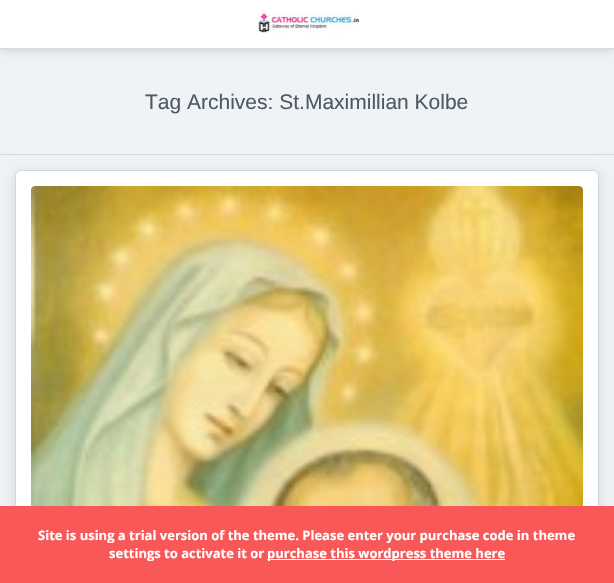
#include "include/core/SkBlurTypes.h"
#include "include/core/SkCanvas.h"
#include "include/core/SkData.h"
#include "include/core/SkFont.h"
#include "include/core/SkFontMgr.h"
#include "include/core/SkImage.h"
#include "include/core/SkMaskFilter.h"
#include "include/core/SkPaint.h"
#include "include/core/SkPathBuilder.h"
#include "include/core/SkTextBlob.h"
#include "include/effects/SkDashPathEffect.h"
#include "include/effects/SkGradientShader.h"
#include "include/utils/SkParsePath.h"

extern sk_sp<SkFontMgr> fontMgr;

void draw(SkCanvas* canvas) {
    SkPaint p;
    p.setAntiAlias(true);
    auto font = [&](const char* family, int weight, float size, bool italic = false) {
        SkFontStyle style(weight, SkFontStyle::kNormal_Width,
            italic ? SkFontStyle::kItalic_Slant : SkFontStyle::kUpright_Slant);
        SkFont result(fontMgr->matchFamilyStyle(family, style), size);
        result.setSubpixel(true);
        return result;
    };
    auto drawPhoto = [&](const char* path, float l, float t, float r, float b) {
        auto image = SkImages::DeferredFromEncodedData(SkData::MakeFromFileName(path));
        canvas->drawImageRect(image, SkRect::MakeLTRB(l, t, r, b), SkSamplingOptions());
    };
    canvas->clear(0xFFF0F3F5);
    p.setColor(0x33000000);
    p.setMaskFilter(SkMaskFilter::MakeBlur(kNormal_SkBlurStyle, 5));
    canvas->drawRect(SkRect::MakeLTRB(0, 0, 614, 49), p);
    p.setMaskFilter(nullptr);
    p.setColor(0xFFFFFFFF);
    canvas->drawRect(SkRect::MakeLTRB(0, 0, 614, 48), p);
    p.setColor(0xFFD1DBE1);
    canvas->drawRect(SkRect::MakeLTRB(0, 48, 614, 49), p);
    drawPhoto("media/1.png", 257, 10, 359, 33);
    canvas->drawRect(SkRect::MakeLTRB(0, 154, 614, 155), p);
    auto font1 = font("Liberation Sans", 400, 21);
    p.setColor(0xFF4E5968);
    canvas->drawString("Tag Archives: St.Maximillian Kolbe", 145, 109, font1, p);
    p.setColor(0x1A000000);
    p.setMaskFilter(SkMaskFilter::MakeBlur(kNormal_SkBlurStyle, 6));
    canvas->drawRoundRect(SkRect::MakeLTRB(14, 172, 600, 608), 7, 7, p);
    p.setMaskFilter(nullptr);
    p.setColor(0xFFFFFFFF);
    canvas->drawRoundRect(SkRect::MakeLTRB(15.5f, 170.5f, 598.5f, 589.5f), 5.5f, 5.5f, p);
    p.setStyle(SkPaint::kStroke_Style);
    p.setStrokeWidth(1);
    p.setColor(0xFFD1D7DC);
    canvas->drawRoundRect(SkRect::MakeLTRB(15.5f, 170.5f, 598.5f, 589.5f), 5.5f, 5.5f, p);
    drawPhoto("media/2.png", 31, 186, 583, 506);
    p.setStyle(SkPaint::kFill_Style);
    p.setColor(0xFFF95858);
    canvas->drawRect(SkRect::MakeLTRB(0, 506, 614, 583), p);
    auto font2 = font("Open Sans", 700, 13);
    p.setColor(0xFFFFFFFF);
    canvas->drawString("Site is using a trial version of the theme. Please enter your purchase code in theme", 38, 540, font2, p);
    canvas->drawString("settings to activate it or", 109, 558, font2, p);
    canvas->drawRect(SkRect::MakeLTRB(267, 559, 505, 560), p);
    canvas->drawString("purchase this wordpress theme here", 267, 558, font2, p);
}
